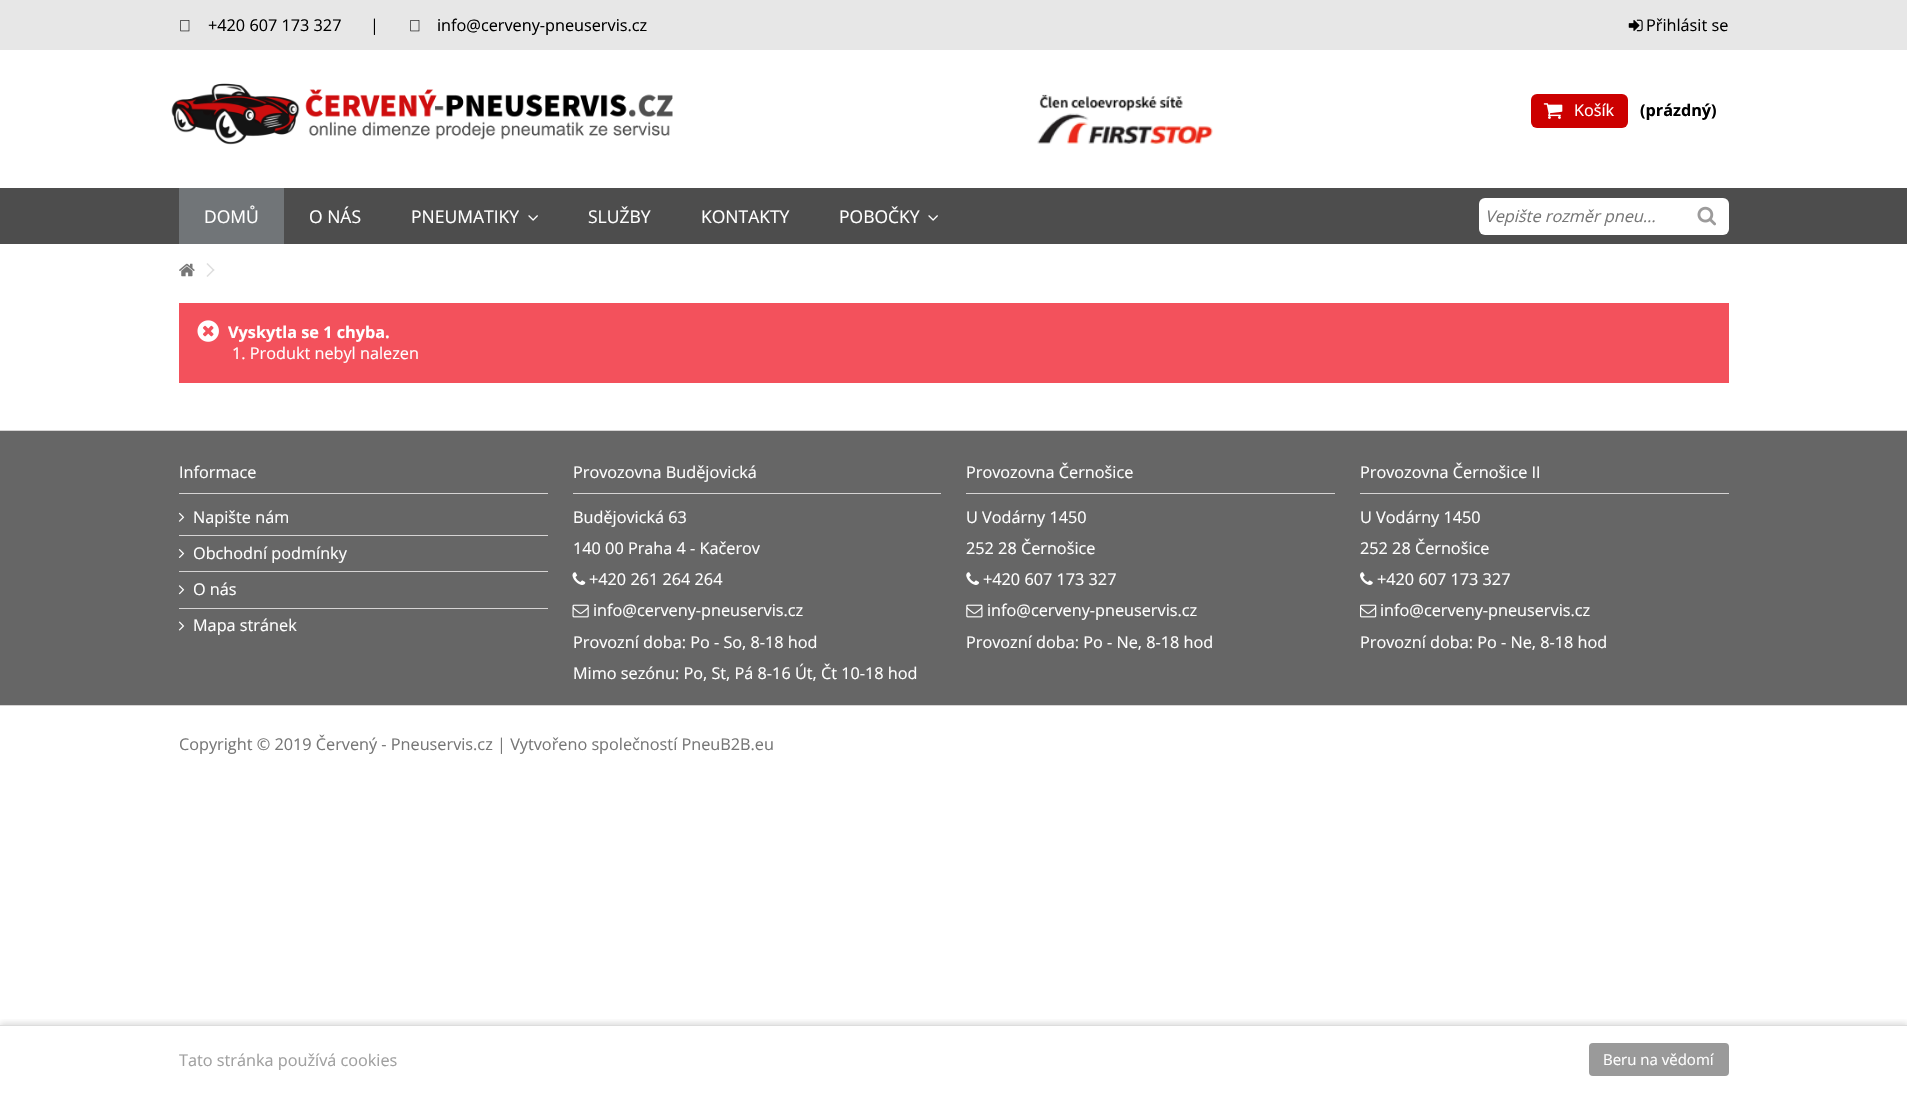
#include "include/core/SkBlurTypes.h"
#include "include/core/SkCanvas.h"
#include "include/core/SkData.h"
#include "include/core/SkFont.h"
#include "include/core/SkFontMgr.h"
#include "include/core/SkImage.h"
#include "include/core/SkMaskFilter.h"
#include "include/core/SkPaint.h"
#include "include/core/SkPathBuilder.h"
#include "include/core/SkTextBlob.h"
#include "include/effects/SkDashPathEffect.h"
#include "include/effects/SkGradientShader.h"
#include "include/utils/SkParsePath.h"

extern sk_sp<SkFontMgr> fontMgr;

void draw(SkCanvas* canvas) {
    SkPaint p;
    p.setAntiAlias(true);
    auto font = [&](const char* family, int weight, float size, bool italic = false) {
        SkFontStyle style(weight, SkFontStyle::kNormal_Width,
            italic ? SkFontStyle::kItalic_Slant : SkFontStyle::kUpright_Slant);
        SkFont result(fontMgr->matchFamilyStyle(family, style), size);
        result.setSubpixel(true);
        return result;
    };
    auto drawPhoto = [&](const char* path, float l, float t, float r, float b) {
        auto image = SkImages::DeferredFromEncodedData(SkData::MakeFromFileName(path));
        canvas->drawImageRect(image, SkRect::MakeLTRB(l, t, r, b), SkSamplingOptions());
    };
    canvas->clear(0xFFFFFFFF);
    p.setColor(0xFFE7E7E7);
    canvas->drawRect(SkRect::MakeLTRB(0, 0, 1907, 50), p);
    drawPhoto("media/1.png", 180, 20, 190, 32);
    auto font1 = font("Open Sans", 400, 16.25f);
    p.setColor(0xFF000000);
    canvas->drawString("+420 607 173 327", 208, 31, font1, p);
    canvas->drawString("|", 370, 31, font1, p);
    drawPhoto("media/1.png", 410, 20, 420, 32);
    canvas->drawString("info@cerveny-pneuservis.cz", 437, 31, font1, p);
    drawPhoto("media/2.png", 1628, 19, 1643, 32);
    canvas->drawString("Přihlásit se", 1646, 31, font1, p);
    drawPhoto("media/3.png", 171, 83, 673, 145);
    drawPhoto("media/4.png", 1037, 94, 1213, 144);
    p.setColor(0xFFCC0000);
    canvas->drawRoundRect(SkRect::MakeLTRB(1531, 94, 1628, 128), 6, 6, p);
    drawPhoto("media/5.png", 1543, 103, 1563, 119);
    p.setColor(0xFFFFFFFF);
    canvas->drawString("Košík", 1574, 116, font1, p);
    auto font2 = font("Open Sans", 700, 16.25f);
    p.setColor(0xFF000000);
    canvas->drawString("(prázdný)", 1640, 116, font2, p);
    p.setColor(0xFF4D4D4D);
    canvas->drawRect(SkRect::MakeLTRB(0, 188, 1907, 244), p);
    p.setColor(0xFF717578);
    canvas->drawRect(SkRect::MakeLTRB(179, 188, 284, 244), p);
    auto font3 = font("Open Sans", 400, 17.5f);
    p.setColor(0xFFFFFFFF);
    {
        const struct { const char* s; float x, y; } items[] = {
            {"DOMŮ", 204, 223},
            {"O NÁS", 309, 223},
            {"PNEUMATIKY", 411, 223},
        };
        for (auto [s, x, y] : items) {
            canvas->drawString(s, x, y, font3, p);
        }
    }
    drawPhoto("media/6.png", 528, 215, 538, 221);
    {
        const struct { const char* s; float x, y; } items[] = {
            {"SLUŽBY", 588, 223},
            {"KONTAKTY", 701, 223},
            {"POBOČKY", 839, 223},
        };
        for (auto [s, x, y] : items) {
            canvas->drawString(s, x, y, font3, p);
        }
    }
    drawPhoto("media/6.png", 928, 215, 938, 221);
    canvas->drawRoundRect(SkRect::MakeLTRB(1479, 198, 1729, 235), 6, 6, p);
    auto font4 = font("Open Sans", 400, 16.25f, true);
    p.setColor(0xFF777777);
    canvas->drawString("Vepište rozměr pneu...", 1485, 222, font4, p);
    drawPhoto("media/7.png", 1697, 206, 1716, 226);
    drawPhoto("media/8.png", 179, 263, 195, 277);
    p.setColor(0xFFDDDDDD);
    canvas->drawPath(SkPathBuilder().moveTo(207.5f, 263).lineTo(214.5f, 270).lineTo(213.5f, 271).lineTo(206.5f, 264).close().detach(), p);
    canvas->drawPath(SkPathBuilder().moveTo(213.5f, 269).lineTo(214.5f, 270).lineTo(207.5f, 277).lineTo(206.5f, 276).close().detach(), p);
    p.setColor(0xFFF3515C);
    canvas->drawRect(SkRect::MakeLTRB(179, 303, 1729, 383), p);
    drawPhoto("media/9.png", 197, 320, 219, 342);
    p.setColor(0xFFFFFFFF);
    canvas->drawString("Vyskytla se 1 chyba.", 228, 338, font2, p);
    canvas->drawString("1. Produkt nebyl nalezen", 232, 359, font1, p);
    {
        const struct { float l, t, r, b; SkColor color; } items[] = {
            {0, 431, 1907, 705, 0xFF666666},
            {0, 430, 1907, 431, 0xFFD6D4D4},
            {0, 705, 1907, 706, 0xFFD6D4D4},
            {179, 493, 548, 494, 0xFFD6D4D4},
        };
        for (auto [l, t, r, b, color] : items) {
            p.setColor(color);
            canvas->drawRect(SkRect::MakeLTRB(l, t, r, b), p);
        }
    }
    p.setColor(0xFFFFFFFF);
    canvas->drawString("Informace", 179, 478, font1, p);
    drawPhoto("media/10.png", 178, 512, 185, 522);
    canvas->drawString("Napište nám", 193, 523, font1, p);
    p.setColor(0xFFD6D4D4);
    canvas->drawRect(SkRect::MakeLTRB(179, 535, 548, 536), p);
    drawPhoto("media/11.png", 178, 549, 185, 558);
    p.setColor(0xFFFFFFFF);
    canvas->drawString("Obchodní podmínky", 193, 559, font1, p);
    p.setColor(0xFFD6D4D4);
    canvas->drawRect(SkRect::MakeLTRB(179, 571, 548, 572), p);
    drawPhoto("media/12.png", 178, 585, 185, 595);
    p.setColor(0xFFFFFFFF);
    canvas->drawString("O nás", 193, 595, font1, p);
    p.setColor(0xFFD6D4D4);
    canvas->drawRect(SkRect::MakeLTRB(179, 608, 548, 609), p);
    drawPhoto("media/13.png", 178, 621, 185, 631);
    p.setColor(0xFFFFFFFF);
    canvas->drawString("Mapa stránek", 193, 631, font1, p);
    p.setColor(0xFFD6D4D4);
    canvas->drawRect(SkRect::MakeLTRB(573, 493, 941, 494), p);
    p.setColor(0xFFFFFFFF);
    {
        const struct { const char* s; float x, y; } items[] = {
            {"Provozovna Budějovická", 573, 478},
            {"Budějovická 63", 573, 523},
            {"140 00 Praha 4 - Kačerov", 573, 554},
        };
        for (auto [s, x, y] : items) {
            canvas->drawString(s, x, y, font1, p);
        }
    }
    drawPhoto("media/14.png", 572, 572, 586, 585);
    canvas->drawString("+420 261 264 264", 589, 585, font1, p);
    drawPhoto("media/15.png", 572, 604, 589, 618);
    {
        const struct { const char* s; float x, y; } items[] = {
            {"info@cerveny-pneuservis.cz", 593, 616},
            {"Provozní doba: Po - So, 8-18 hod", 573, 648},
            {"Mimo sezónu: Po, St, Pá 8-16 Út, Čt 10-18 hod", 573, 679},
        };
        for (auto [s, x, y] : items) {
            canvas->drawString(s, x, y, font1, p);
        }
    }
    p.setColor(0xFFD6D4D4);
    canvas->drawRect(SkRect::MakeLTRB(966, 493, 1335, 494), p);
    p.setColor(0xFFFFFFFF);
    {
        const struct { const char* s; float x, y; } items[] = {
            {"Provozovna Černošice", 966, 478},
            {"U Vodárny 1450", 966, 523},
            {"252 28 Černošice", 966, 554},
        };
        for (auto [s, x, y] : items) {
            canvas->drawString(s, x, y, font1, p);
        }
    }
    drawPhoto("media/16.png", 966, 572, 979, 585);
    canvas->drawString("+420 607 173 327", 983, 585, font1, p);
    drawPhoto("media/17.png", 966, 604, 983, 618);
    canvas->drawString("info@cerveny-pneuservis.cz", 987, 616, font1, p);
    canvas->drawString("Provozní doba: Po - Ne, 8-18 hod", 966, 648, font1, p);
    p.setColor(0xFFD6D4D4);
    canvas->drawRect(SkRect::MakeLTRB(1360, 493, 1729, 494), p);
    p.setColor(0xFFFFFFFF);
    {
        const struct { const char* s; float x, y; } items[] = {
            {"Provozovna Černošice II", 1360, 478},
            {"U Vodárny 1450", 1360, 523},
            {"252 28 Černošice", 1360, 554},
        };
        for (auto [s, x, y] : items) {
            canvas->drawString(s, x, y, font1, p);
        }
    }
    drawPhoto("media/18.png", 1360, 572, 1373, 585);
    canvas->drawString("+420 607 173 327", 1377, 585, font1, p);
    drawPhoto("media/19.png", 1360, 604, 1377, 618);
    canvas->drawString("info@cerveny-pneuservis.cz", 1380, 616, font1, p);
    canvas->drawString("Provozní doba: Po - Ne, 8-18 hod", 1360, 648, font1, p);
    p.setColor(0xFF777777);
    canvas->drawString("Copyright © 2019 Červený - Pneuservis.cz | Vytvořeno společností PneuB2B.eu", 179, 750, font1, p);
    canvas->save();
    canvas->clipRect(SkRect::MakeLTRB(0, 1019, 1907, 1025));
    p.setColor(0x334D4D4D);
    p.setMaskFilter(SkMaskFilter::MakeBlur(kNormal_SkBlurStyle, 3));
    canvas->drawRect(SkRect::MakeLTRB(0, 1023, 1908, 1104), p);
    p.setMaskFilter(nullptr);
    canvas->restore();
    p.setColor(0xFFDDDDDD);
    canvas->drawRect(SkRect::MakeLTRB(0, 1025, 1907, 1026), p);
    p.setColor(0xFFA0A0A0);
    canvas->drawString("Tato stránka používá cookies", 179, 1066, font1, p);
    p.setColor(0xFF9A9A9A);
    canvas->drawRoundRect(SkRect::MakeLTRB(1589, 1043, 1729, 1076), 4, 4, p);
    auto font5 = font("Open Sans", 400, 15);
    p.setColor(0xFFFFFFFF);
    canvas->drawString("Beru na vědomí", 1603, 1065, font5, p);
}
